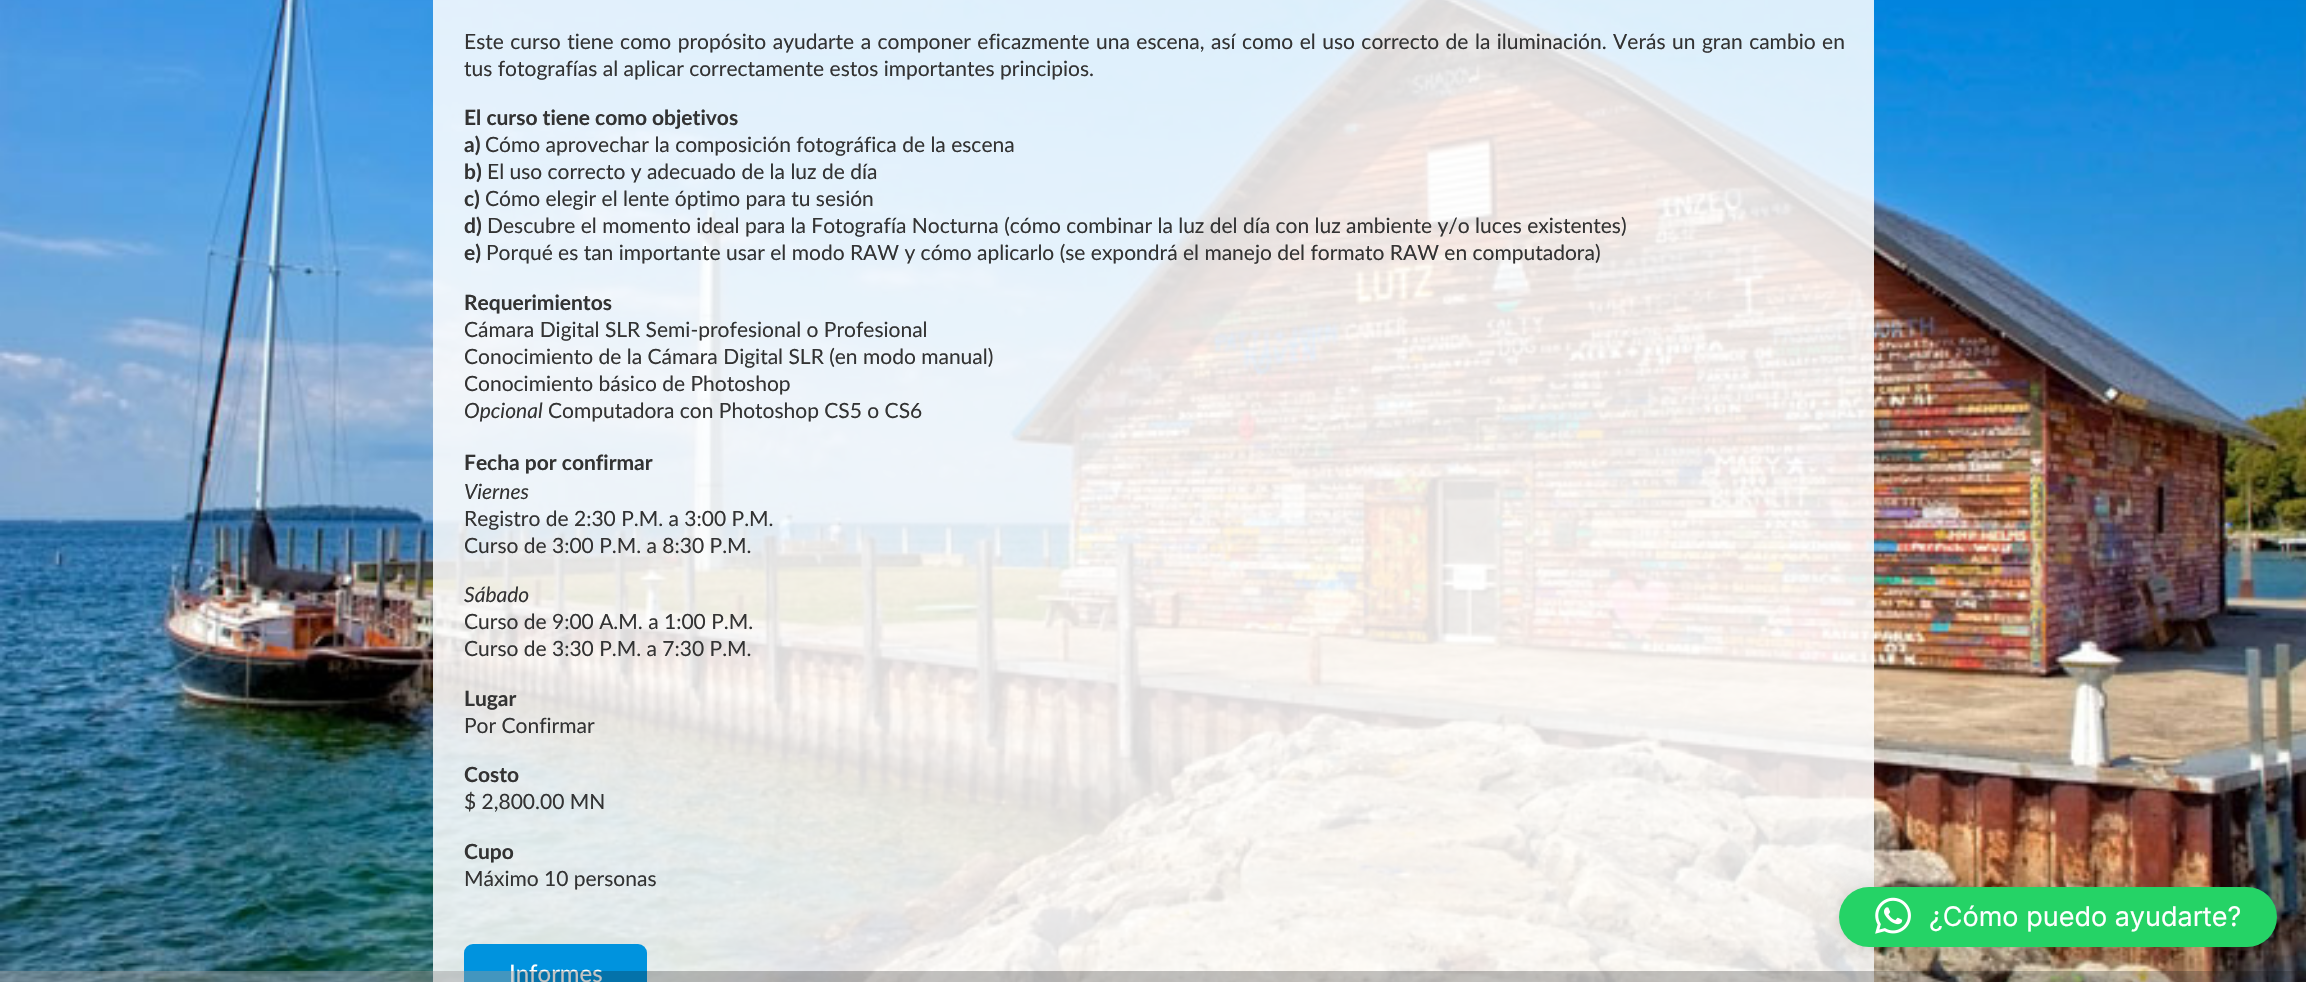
#include "include/core/SkBlurTypes.h"
#include "include/core/SkCanvas.h"
#include "include/core/SkData.h"
#include "include/core/SkFont.h"
#include "include/core/SkFontMgr.h"
#include "include/core/SkImage.h"
#include "include/core/SkMaskFilter.h"
#include "include/core/SkPaint.h"
#include "include/core/SkPathBuilder.h"
#include "include/core/SkTextBlob.h"
#include "include/effects/SkDashPathEffect.h"
#include "include/effects/SkGradientShader.h"
#include "include/utils/SkParsePath.h"

extern sk_sp<SkFontMgr> fontMgr;

void draw(SkCanvas* canvas) {
    SkPaint p;
    p.setAntiAlias(true);
    auto font = [&](const char* family, int weight, float size, bool italic = false) {
        SkFontStyle style(weight, SkFontStyle::kNormal_Width,
            italic ? SkFontStyle::kItalic_Slant : SkFontStyle::kUpright_Slant);
        SkFont result(fontMgr->matchFamilyStyle(family, style), size);
        result.setSubpixel(true);
        return result;
    };
    auto drawTracked = [&](const char* s, float x, float y, const SkFont& font, const SkPaint& ink, float letter, float word) {
        std::vector<SkGlyphID> glyphs(font.countText(s, strlen(s), SkTextEncoding::kUTF8));
        std::vector<float> xs(glyphs.size());
        font.textToGlyphs(s, strlen(s), SkTextEncoding::kUTF8, glyphs);
        font.getXPos(glyphs, xs, x);
        float extra = 0;
        for (size_t i = 0; i < glyphs.size(); i++) {
            xs[i] += extra;
            extra += letter + word * (glyphs[i] == font.unicharToGlyph(' '));
        }
        canvas->drawTextBlob(SkTextBlob::MakeFromPosHGlyphs(glyphs, xs, y, font), 0, 0, ink);
    };
    auto drawPhoto = [&](const char* path, float l, float t, float r, float b) {
        auto image = SkImages::DeferredFromEncodedData(SkData::MakeFromFileName(path));
        canvas->drawImageRect(image, SkRect::MakeLTRB(l, t, r, b), SkSamplingOptions());
    };
    canvas->clear(0xFFFFFFFF);
    drawPhoto("media/1.png", 0, 0, 2306, 982);
    p.setColor(0xDBFFFFFF);
    canvas->drawRect(SkRect::MakeLTRB(433, 0, 1874, 982), p);
    auto font1 = font("Lato", 400, 21);
    p.setColor(0xFF333333);
    drawTracked("Este curso tiene como propósito ayudarte a componer eficazmente una escena, así como el uso correcto de la iluminación. Verás un gran cambio en", 464, 49, font1, p, 0, 1.1f);
    canvas->drawString("tus fotografías al aplicar correctamente estos importantes principios.", 464, 76, font1, p);
    auto font2 = font("Lato", 700, 21);
    canvas->drawString("El curso tiene como objetivos", 464, 125, font2, p);
    canvas->drawString("a)", 464, 152, font2, p);
    canvas->drawString("Cómo aprovechar la composición fotográfica de la escena", 485, 152, font1, p);
    canvas->drawString("b)", 464, 179, font2, p);
    canvas->drawString("El uso correcto y adecuado de la luz de día", 487, 179, font1, p);
    canvas->drawString("c)", 464, 206, font2, p);
    canvas->drawString("Cómo elegir el lente óptimo para tu sesión", 485, 206, font1, p);
    canvas->drawString("d)", 464, 233, font2, p);
    canvas->drawString("Descubre el momento ideal para la Fotografía Nocturna (cómo combinar la luz del día con luz ambiente y/o luces existentes)", 487, 233, font1, p);
    canvas->drawString("e)", 464, 260, font2, p);
    canvas->drawString("Porqué es tan importante usar el modo RAW y cómo aplicarlo (se expondrá el manejo del formato RAW en computadora)", 486, 260, font1, p);
    canvas->drawString("Requerimientos", 464, 310, font2, p);
    {
        const struct { const char* s; float x, y; } items[] = {
            {"Cámara Digital SLR Semi-profesional o Profesional", 464, 337},
            {"Conocimiento de la Cámara Digital SLR (en modo manual)", 464, 364},
            {"Conocimiento básico de Photoshop", 464, 391},
        };
        for (auto [s, x, y] : items) {
            canvas->drawString(s, x, y, font1, p);
        }
    }
    auto font3 = font("Lato", 400, 21, true);
    canvas->drawString("Opcional", 464, 418, font3, p);
    canvas->drawString("Computadora con Photoshop CS5 o CS6", 548, 418, font1, p);
    canvas->drawString("Fecha por confirmar", 464, 470, font2, p);
    canvas->drawString("Viernes", 464, 499, font3, p);
    canvas->drawString("Registro de 2:30 P.M. a 3:00 P.M.", 464, 526, font1, p);
    canvas->drawString("Curso de 3:00 P.M. a 8:30 P.M.", 464, 553, font1, p);
    canvas->drawString("Sábado", 464, 602, font3, p);
    canvas->drawString("Curso de 9:00 A.M. a 1:00 P.M.", 464, 629, font1, p);
    canvas->drawString("Curso de 3:30 P.M. a 7:30 P.M.", 464, 656, font1, p);
    canvas->drawString("Lugar", 464, 706, font2, p);
    canvas->drawString("Por Confirmar", 464, 733, font1, p);
    canvas->drawString("Costo", 464, 782, font2, p);
    canvas->drawString("$ 2,800.00 MN", 464, 809, font1, p);
    canvas->drawString("Cupo", 464, 859, font2, p);
    canvas->drawString("Máximo 10 personas", 464, 886, font1, p);
    p.setColor(0xFF0093DE);
    canvas->drawRoundRect(SkRect::MakeLTRB(464, 944, 647, 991), 9, 9, p);
    auto font4 = font("Lato", 400, 24);
    p.setColor(0xFFFFFFFF);
    canvas->drawString("Informes", 509, 982, font4, p);
    p.setColor(0x40101010);
    canvas->drawRect(SkRect::MakeLTRB(0, 971, 2306, 982), p);
    p.setColor(0x29000000);
    p.setMaskFilter(SkMaskFilter::MakeBlur(kNormal_SkBlurStyle, 24));
    canvas->drawRoundRect(SkRect::MakeLTRB(1839, 890, 2277, 950), 30, 30, p);
    p.setMaskFilter(nullptr);
    p.setColor(0x0F000000);
    p.setMaskFilter(SkMaskFilter::MakeBlur(kNormal_SkBlurStyle, 4.5f));
    canvas->drawRoundRect(SkRect::MakeLTRB(1839, 888, 2277, 948), 30, 30, p);
    p.setMaskFilter(nullptr);
    p.setColor(0xFF25D366);
    canvas->drawRoundRect(SkRect::MakeLTRB(1839, 887, 2277, 947), 30, 30, p);
    drawPhoto("media/2.png", 1875, 897, 1911, 934);
    auto font5 = font("Inter", 400, 27);
    p.setColor(0xFFFFFFFF);
    canvas->drawString("¿Cómo puedo ayudarte?", 1929, 926, font5, p);
    p.setColor(0x40FFFFFF);
    canvas->drawRect(SkRect::MakeLTRB(0, 971, 515, 982), p);
}
